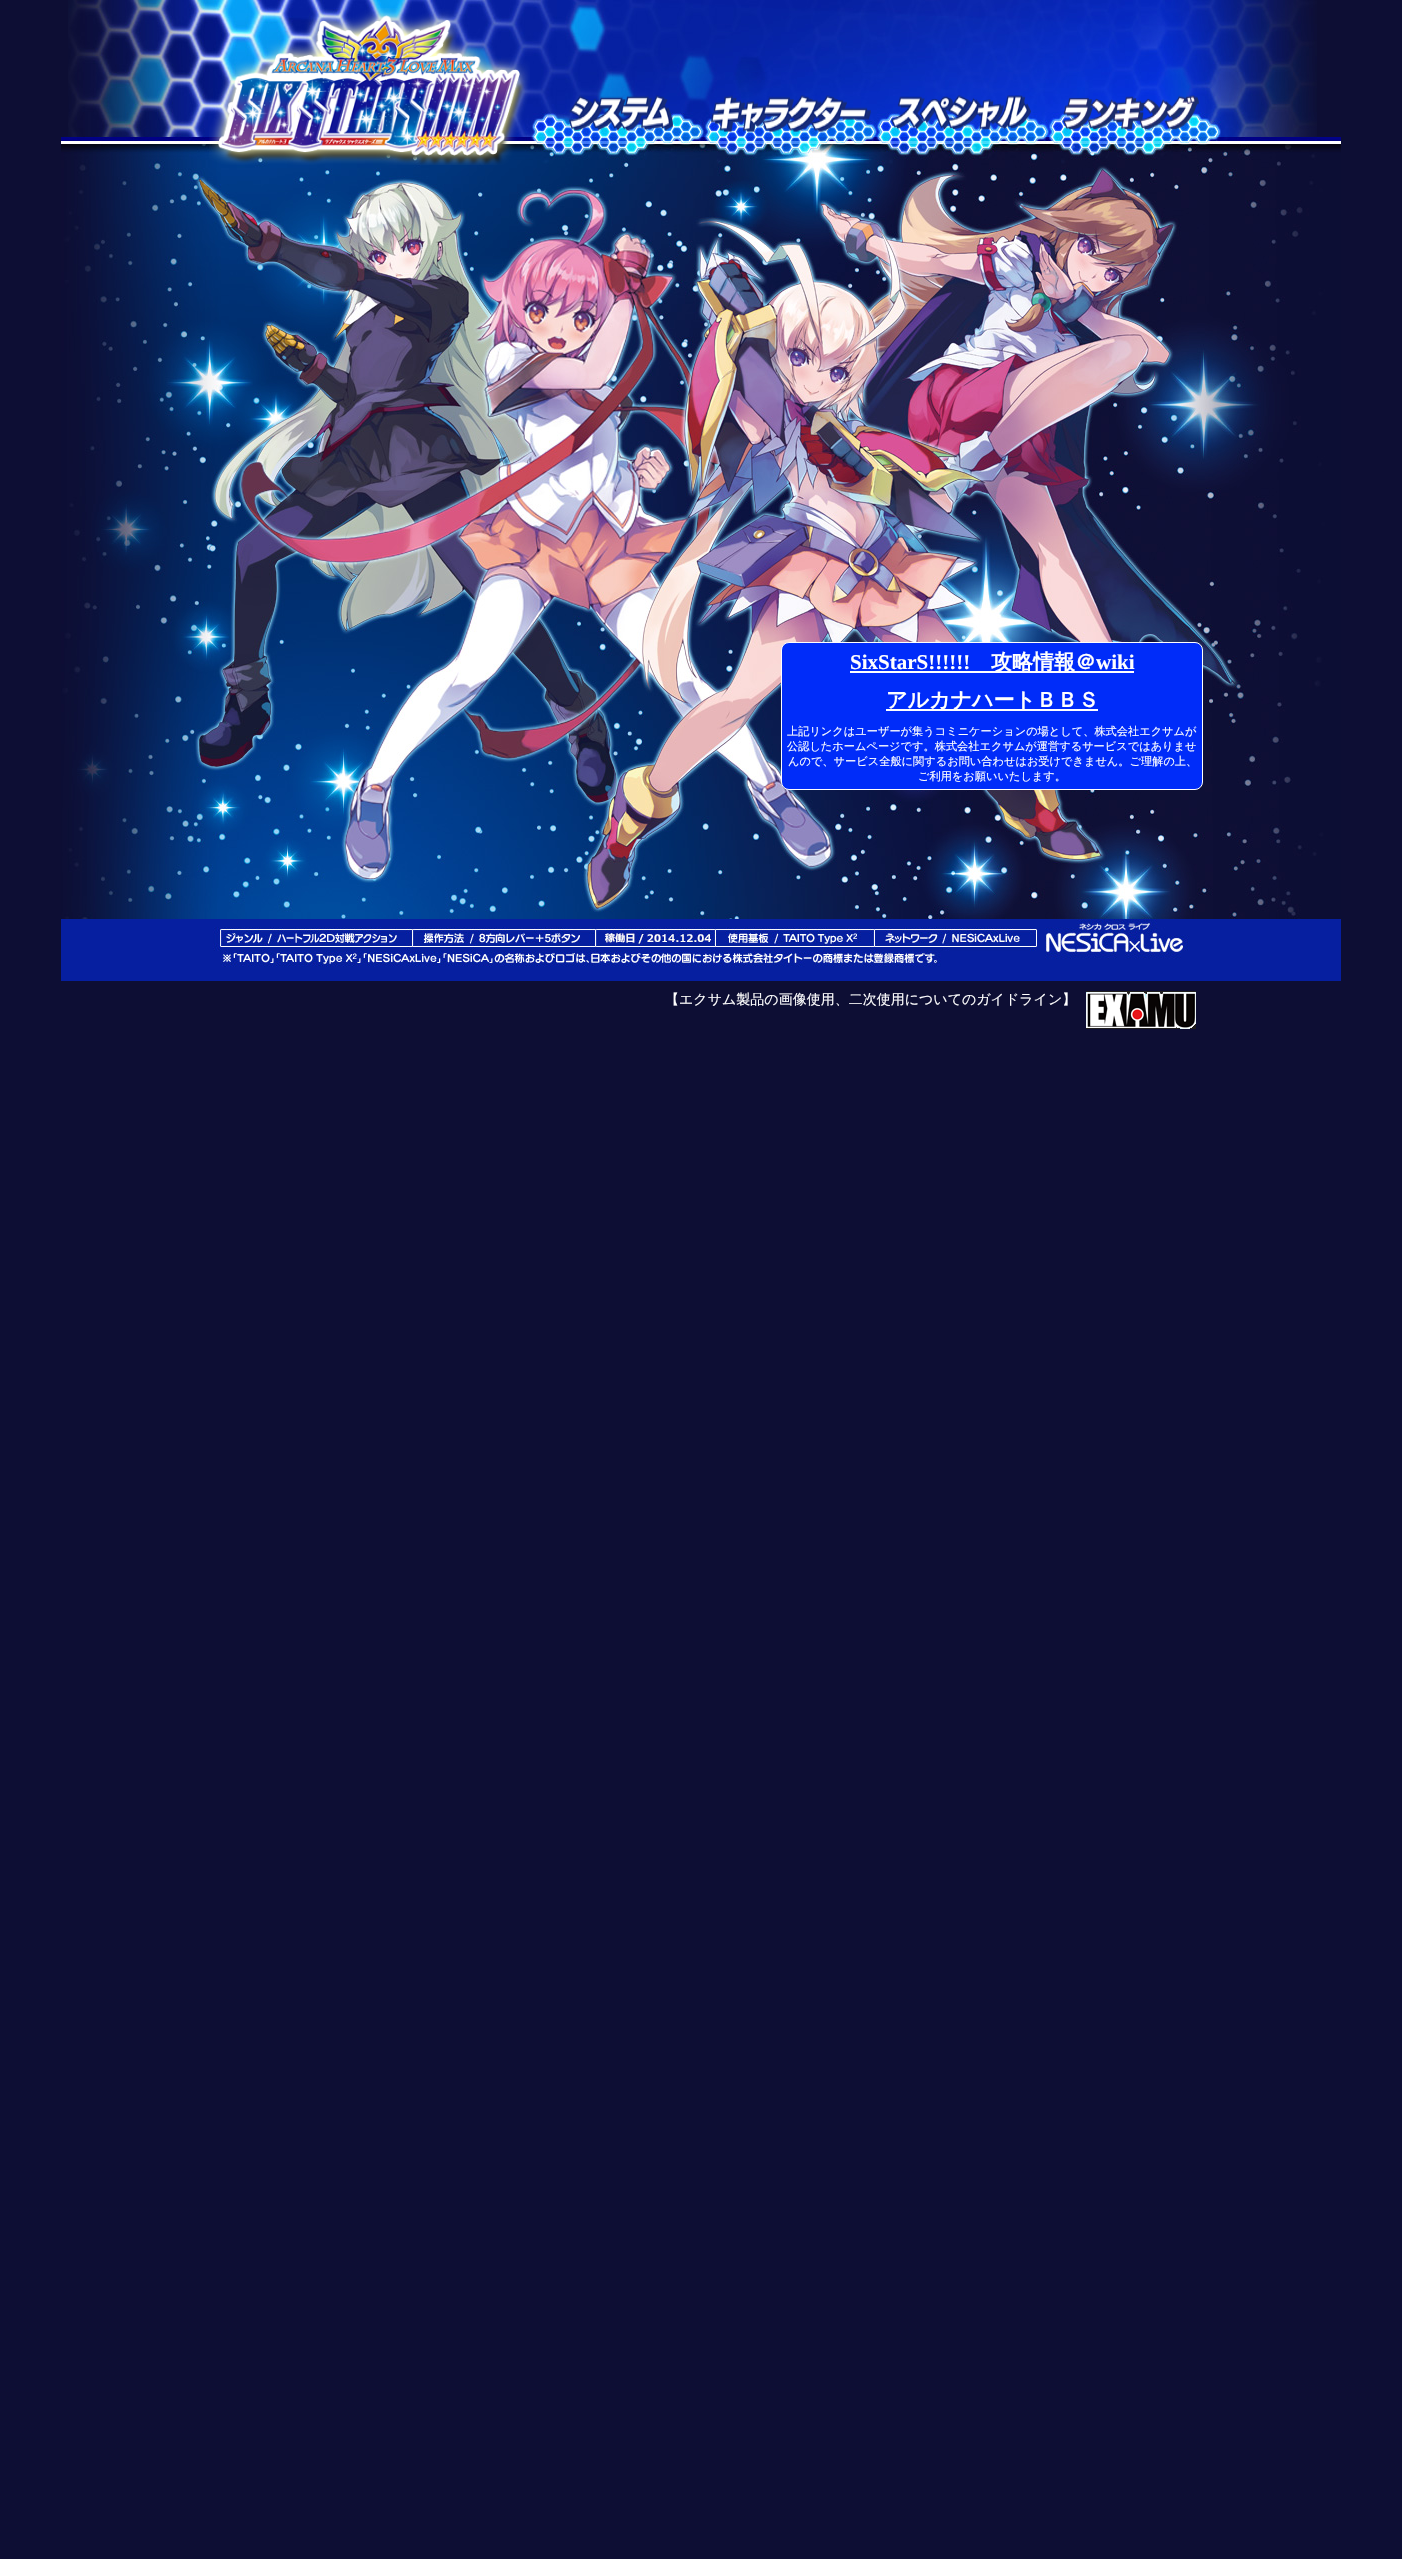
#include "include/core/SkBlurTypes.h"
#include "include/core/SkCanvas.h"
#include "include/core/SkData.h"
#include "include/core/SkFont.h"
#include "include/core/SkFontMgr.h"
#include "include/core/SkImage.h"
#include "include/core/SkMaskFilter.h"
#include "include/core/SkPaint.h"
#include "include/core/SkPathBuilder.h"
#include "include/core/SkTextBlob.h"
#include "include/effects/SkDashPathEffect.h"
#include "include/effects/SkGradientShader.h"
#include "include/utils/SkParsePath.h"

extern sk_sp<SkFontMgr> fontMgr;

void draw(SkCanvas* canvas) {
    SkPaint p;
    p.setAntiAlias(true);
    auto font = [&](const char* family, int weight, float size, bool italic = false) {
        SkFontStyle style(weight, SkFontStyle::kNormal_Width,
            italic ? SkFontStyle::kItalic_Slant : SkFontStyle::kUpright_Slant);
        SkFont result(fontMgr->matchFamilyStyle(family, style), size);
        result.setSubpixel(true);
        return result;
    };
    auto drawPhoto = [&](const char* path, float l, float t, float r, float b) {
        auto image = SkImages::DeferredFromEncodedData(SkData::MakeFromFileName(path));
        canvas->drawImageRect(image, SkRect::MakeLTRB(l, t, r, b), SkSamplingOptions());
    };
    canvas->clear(0xFF0D0E34);
    drawPhoto("media/1.png", 68, 0, 1317, 136);
    drawPhoto("media/7.png", 61, 136, 1341, 919);
    drawPhoto("media/2.png", 209, 8, 530, 165);
    drawPhoto("media/3.png", 569, 95, 673, 131);
    drawPhoto("media/4.png", 711, 95, 871, 132);
    drawPhoto("media/5.png", 891, 95, 1031, 130);
    drawPhoto("media/6.png", 1063, 95, 1199, 130);
    p.setColor(0xFF002CF9);
    canvas->drawRoundRect(SkRect::MakeLTRB(781.5f, 642.5f, 1202.5f, 789.5f), 7.5f, 7.5f, p);
    p.setStyle(SkPaint::kStroke_Style);
    p.setStrokeWidth(1);
    p.setColor(0xFFFFFFFF);
    canvas->drawRoundRect(SkRect::MakeLTRB(781.5f, 642.5f, 1202.5f, 789.5f), 7.5f, 7.5f, p);
    auto font1 = font("Liberation Serif", 700, 21);
    p.setStyle(SkPaint::kFill_Style);
    canvas->drawString("SixStarS!!!!!!", 850, 669, font1, p);
    canvas->drawRect(SkRect::MakeLTRB(850, 671, 1134, 673), p);
    auto font2 = font("WenQuanYi Zen Hei", 700, 21);
    canvas->drawString("攻略情報＠", 991, 669, font2, p);
    canvas->drawString("wiki", 1096, 669, font1, p);
    canvas->drawRect(SkRect::MakeLTRB(886, 709, 1098, 711), p);
    canvas->drawString("アルカナハートＢＢＳ", 886, 707, font2, p);
    auto font3 = font("WenQuanYi Zen Hei", 500, 11.2f);
    {
        const struct { const char* s; float x, y; } items[] = {
            {"上記リンクはユーザーが集うコミニケーションの場として、株式会社エクサムが", 787, 735},
            {"公認したホームページです。株式会社エクサムが運営するサービスではありませ", 787, 750},
            {"んので、サービス全般に関するお問い合わせはお受けできません。ご理解の上、", 788, 765},
            {"ご利用をお願いいたします。", 918, 780},
        };
        for (auto [s, x, y] : items) {
            canvas->drawString(s, x, y, font3, p);
        }
    }
    drawPhoto("media/8.png", 61, 919, 1341, 981);
    auto font4 = font("WenQuanYi Zen Hei", 500, 14);
    canvas->drawString("【エクサム製品の画像使用、二次使用についてのガイドライン】", 665, 1004, font4, p);
    drawPhoto("media/9.png", 1086, 991, 1196, 1029);
}
